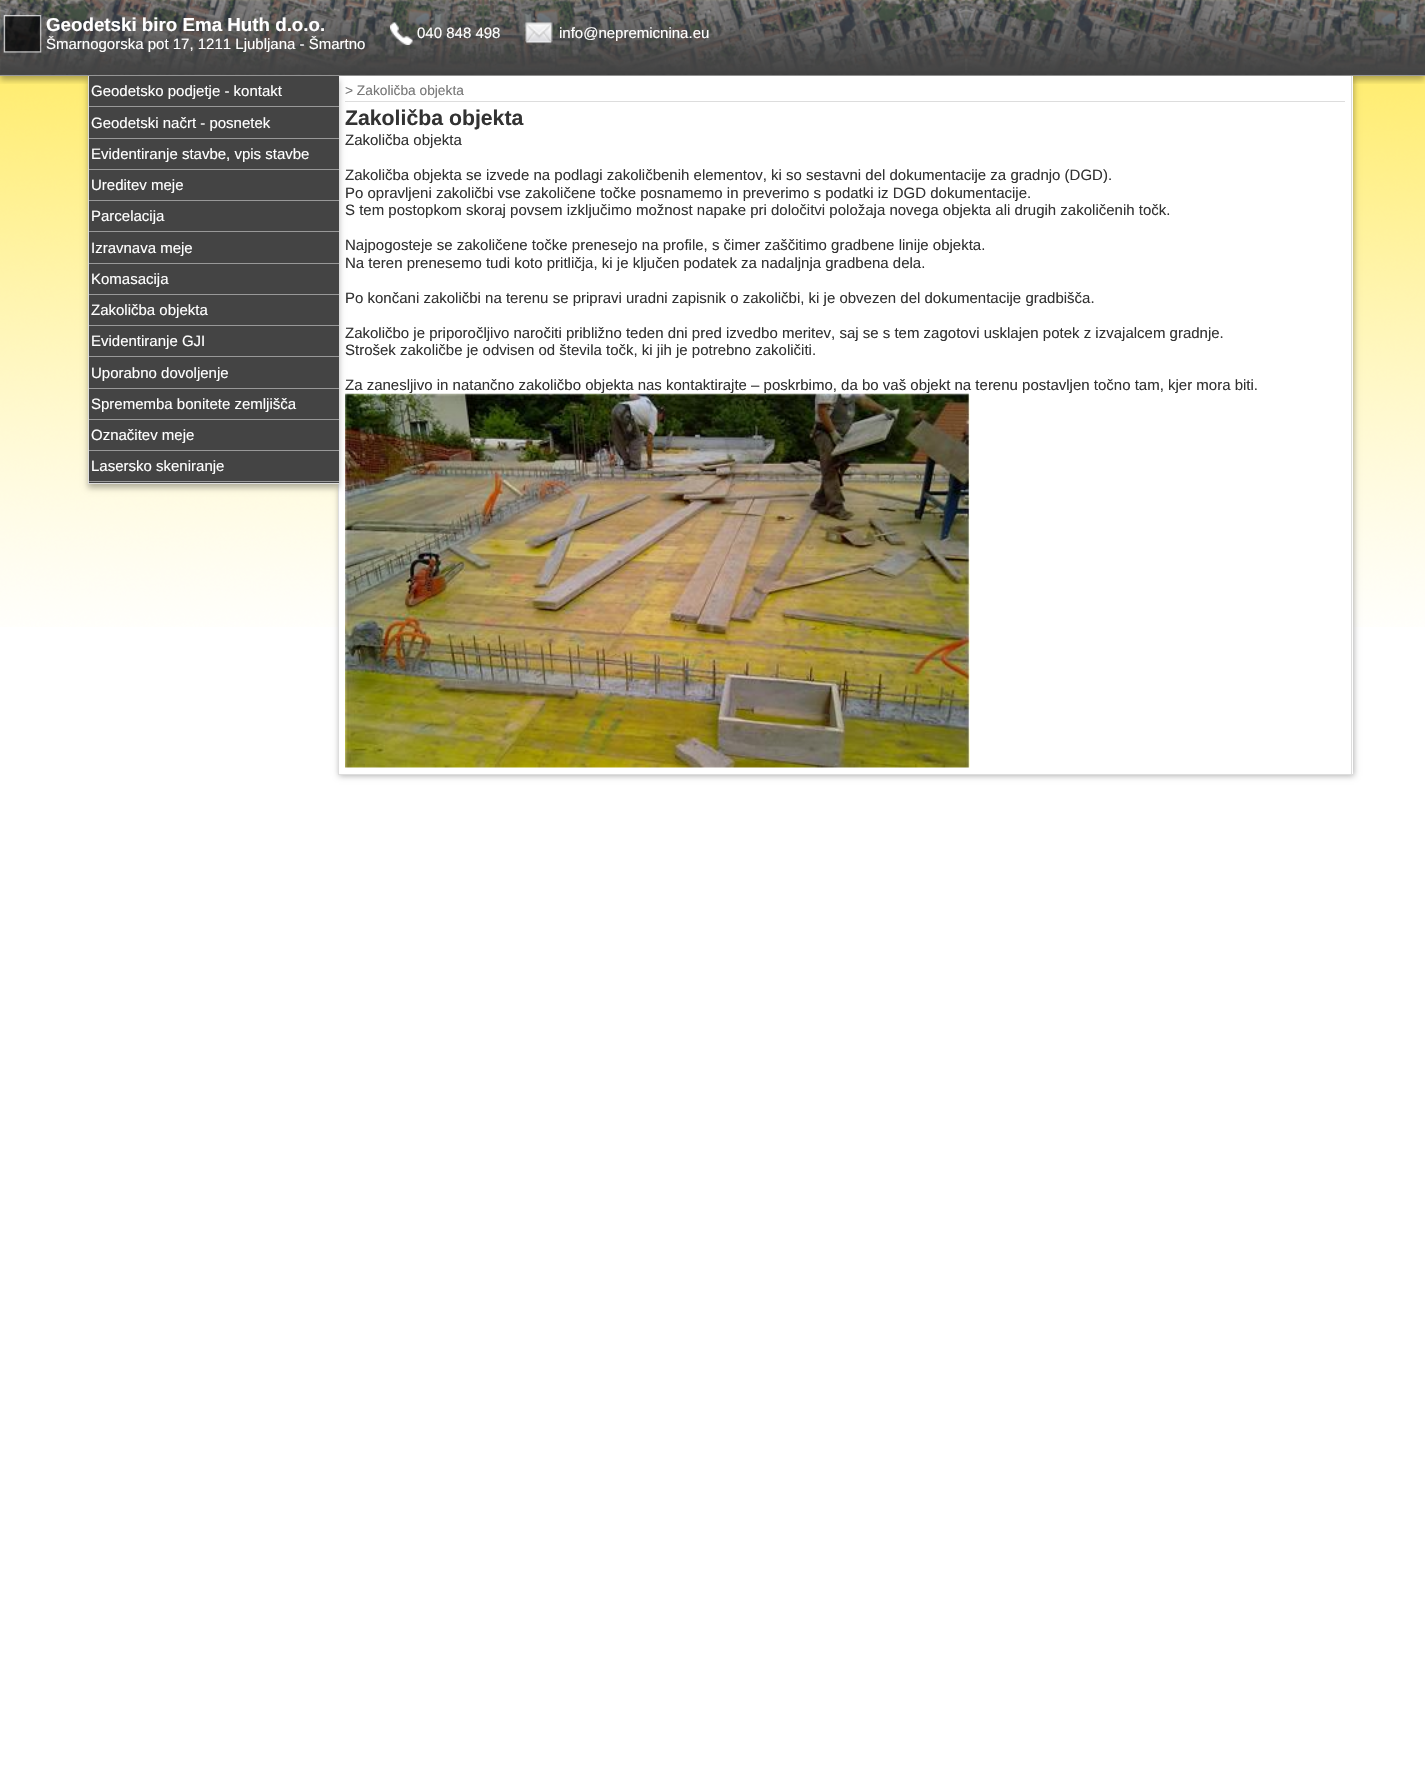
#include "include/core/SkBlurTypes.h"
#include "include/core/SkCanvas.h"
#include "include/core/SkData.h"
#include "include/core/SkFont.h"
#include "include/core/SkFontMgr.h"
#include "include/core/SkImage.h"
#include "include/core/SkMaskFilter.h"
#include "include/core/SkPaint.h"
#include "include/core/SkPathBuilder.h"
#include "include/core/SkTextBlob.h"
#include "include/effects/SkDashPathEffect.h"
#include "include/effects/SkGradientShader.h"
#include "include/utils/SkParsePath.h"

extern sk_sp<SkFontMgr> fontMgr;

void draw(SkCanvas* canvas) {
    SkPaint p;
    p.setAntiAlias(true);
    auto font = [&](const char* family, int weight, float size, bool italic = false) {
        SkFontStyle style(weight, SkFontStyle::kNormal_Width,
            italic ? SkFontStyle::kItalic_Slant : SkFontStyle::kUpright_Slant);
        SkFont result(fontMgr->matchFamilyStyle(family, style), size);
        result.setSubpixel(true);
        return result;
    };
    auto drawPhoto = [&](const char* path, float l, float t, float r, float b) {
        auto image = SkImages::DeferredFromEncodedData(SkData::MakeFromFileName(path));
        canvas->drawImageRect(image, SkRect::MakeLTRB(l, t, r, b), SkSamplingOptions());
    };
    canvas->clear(0xFFFFFFFF);
    drawPhoto("media/1.png", 0, 0, 1425, 627);
    canvas->save();
    canvas->clipRect(SkRect::MakeLTRB(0, 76, 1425, 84));
    p.setColor(0x4D000000);
    p.setMaskFilter(SkMaskFilter::MakeBlur(kNormal_SkBlurStyle, 3));
    canvas->drawRect(SkRect::MakeLTRB(0, 4, 1425, 80), p);
    p.setMaskFilter(nullptr);
    canvas->restore();
    drawPhoto("media/2.png", 0, 0, 1425, 75);
    p.setColor(0xFF999999);
    canvas->drawRect(SkRect::MakeLTRB(0, 75, 1425, 76), p);
    drawPhoto("media/3.png", 3, 15, 42, 53);
    auto font1 = font("Liberation Sans", 700, 18.75f);
    p.setColor(0xFFFFFFFF);
    canvas->drawString("Geodetski biro Ema Huth d.o.o.", 46, 31, font1, p);
    auto font2 = font("Liberation Sans", 400, 15);
    canvas->drawString("Šmarnogorska pot 17, 1211 Ljubljana - Šmartno", 46, 49, font2, p);
    drawPhoto("media/4.png", 390, 22, 413, 45);
    canvas->drawString("040 848 498", 417, 38, font2, p);
    drawPhoto("media/5.png", 525, 22, 553, 44);
    canvas->drawString("info@nepremicnina.eu", 559, 38, font2, p);
    p.setColor(0x4D000000);
    p.setMaskFilter(SkMaskFilter::MakeBlur(kNormal_SkBlurStyle, 3));
    canvas->drawRect(SkRect::MakeLTRB(339, 78, 1354, 776), p);
    p.setMaskFilter(nullptr);
    {
        const struct { float l, t, r, b; SkColor color; } items[] = {
            {339, 76, 1353, 774, 0xFFFFFFFF},
            {1351, 76, 1352, 775, 0xFFDDDDDD},
            {338, 774, 1353, 775, 0xFFDDDDDD},
            {338, 484, 339, 775, 0xFFDDDDDD},
            {345, 101, 1345, 102, 0xFFDDDDDD},
        };
        for (auto [l, t, r, b, color] : items) {
            p.setColor(color);
            canvas->drawRect(SkRect::MakeLTRB(l, t, r, b), p);
        }
    }
    p.setColor(0xFF333333);
    canvas->drawString("Za zanesljivo in natančno zakoličbo objekta nas kontaktirajte – poskrbimo, da bo vaš objekt na terenu postavljen točno tam, kjer mora biti.", 345, 390, font2, p);
    drawPhoto("media/6.png", 345, 393, 970, 768);
    p.setColor(0x4D000000);
    p.setMaskFilter(SkMaskFilter::MakeBlur(kNormal_SkBlurStyle, 3));
    canvas->drawRect(SkRect::MakeLTRB(88, 80, 339, 488), p);
    p.setMaskFilter(nullptr);
    {
        const struct { float l, t, r, b; SkColor color; } items[] = {
            {89, 76, 339, 483, 0xFF444444},
            {88, 483, 339, 484, 0xFFDDDDDD},
            {88, 76, 89, 484, 0xFFDDDDDD},
            {89, 106, 339, 107, 0xFF999999},
        };
        for (auto [l, t, r, b, color] : items) {
            p.setColor(color);
            canvas->drawRect(SkRect::MakeLTRB(l, t, r, b), p);
        }
    }
    p.setColor(0xFFFFFFFF);
    canvas->drawString("Geodetsko podjetje - kontakt", 91, 96, font2, p);
    p.setColor(0xFF999999);
    canvas->drawRect(SkRect::MakeLTRB(89, 138, 339, 139), p);
    p.setColor(0xFFFFFFFF);
    canvas->drawString("Geodetski načrt - posnetek", 91, 128, font2, p);
    p.setColor(0xFF999999);
    canvas->drawRect(SkRect::MakeLTRB(89, 169, 339, 170), p);
    p.setColor(0xFFFFFFFF);
    canvas->drawString("Evidentiranje stavbe, vpis stavbe", 91, 159, font2, p);
    p.setColor(0xFF999999);
    canvas->drawRect(SkRect::MakeLTRB(89, 200, 339, 201), p);
    p.setColor(0xFFFFFFFF);
    canvas->drawString("Ureditev meje", 91, 190, font2, p);
    p.setColor(0xFF999999);
    canvas->drawRect(SkRect::MakeLTRB(89, 231, 339, 232), p);
    p.setColor(0xFFFFFFFF);
    canvas->drawString("Parcelacija", 91, 221, font2, p);
    p.setColor(0xFF999999);
    canvas->drawRect(SkRect::MakeLTRB(89, 263, 339, 264), p);
    p.setColor(0xFFFFFFFF);
    canvas->drawString("Izravnava meje", 91, 253, font2, p);
    p.setColor(0xFF999999);
    canvas->drawRect(SkRect::MakeLTRB(89, 294, 339, 295), p);
    p.setColor(0xFFFFFFFF);
    canvas->drawString("Komasacija", 91, 284, font2, p);
    p.setColor(0xFF999999);
    canvas->drawRect(SkRect::MakeLTRB(89, 325, 339, 326), p);
    p.setColor(0xFFFFFFFF);
    canvas->drawString("Zakoličba objekta", 91, 315, font2, p);
    p.setColor(0xFF999999);
    canvas->drawRect(SkRect::MakeLTRB(89, 356, 339, 357), p);
    p.setColor(0xFFFFFFFF);
    canvas->drawString("Evidentiranje GJI", 91, 346, font2, p);
    p.setColor(0xFF999999);
    canvas->drawRect(SkRect::MakeLTRB(89, 388, 339, 389), p);
    p.setColor(0xFFFFFFFF);
    canvas->drawString("Uporabno dovoljenje", 91, 378, font2, p);
    p.setColor(0xFF999999);
    canvas->drawRect(SkRect::MakeLTRB(89, 419, 339, 420), p);
    p.setColor(0xFFFFFFFF);
    canvas->drawString("Sprememba bonitete zemljišča", 91, 409, font2, p);
    p.setColor(0xFF999999);
    canvas->drawRect(SkRect::MakeLTRB(89, 450, 339, 451), p);
    p.setColor(0xFFFFFFFF);
    canvas->drawString("Označitev meje", 91, 440, font2, p);
    p.setColor(0xFF999999);
    canvas->drawRect(SkRect::MakeLTRB(89, 481, 339, 482), p);
    p.setColor(0xFFFFFFFF);
    canvas->drawString("Lasersko skeniranje", 91, 471, font2, p);
    auto font3 = font("Liberation Sans", 400, 13.75f);
    p.setColor(0xFF777777);
    canvas->drawString("> Zakoličba objekta", 345, 95, font3, p);
    auto font4 = font("Liberation Sans", 700, 21.25f);
    p.setColor(0xFF333333);
    canvas->drawString("Zakoličba objekta", 345, 125, font4, p);
    {
        const struct { const char* s; float x, y; } items[] = {
            {"Zakoličba objekta", 345, 145},
            {"Zakoličba objekta se izvede na podlagi zakoličbenih elementov, ki so sestavni del dokumentacije za gradnjo (DGD).", 345, 180},
            {"Po opravljeni zakoličbi vse zakoličene točke posnamemo in preverimo s podatki iz DGD dokumentacije.", 345, 198},
            {"S tem postopkom skoraj povsem izključimo možnost napake pri določitvi položaja novega objekta ali drugih zakoličenih točk.", 345, 215},
            {"Najpogosteje se zakoličene točke prenesejo na profile, s čimer zaščitimo gradbene linije objekta.", 345, 250},
            {"Na teren prenesemo tudi koto pritličja, ki je ključen podatek za nadaljnja gradbena dela.", 345, 268},
            {"Po končani zakoličbi na terenu se pripravi uradni zapisnik o zakoličbi, ki je obvezen del dokumentacije gradbišča.", 345, 303},
            {"Zakoličbo je priporočljivo naročiti približno teden dni pred izvedbo meritev, saj se s tem zagotovi usklajen potek z izvajalcem gradnje.", 345, 338},
            {"Strošek zakoličbe je odvisen od števila točk, ki jih je potrebno zakoličiti.", 345, 355},
        };
        for (auto [s, x, y] : items) {
            canvas->drawString(s, x, y, font2, p);
        }
    }
}
